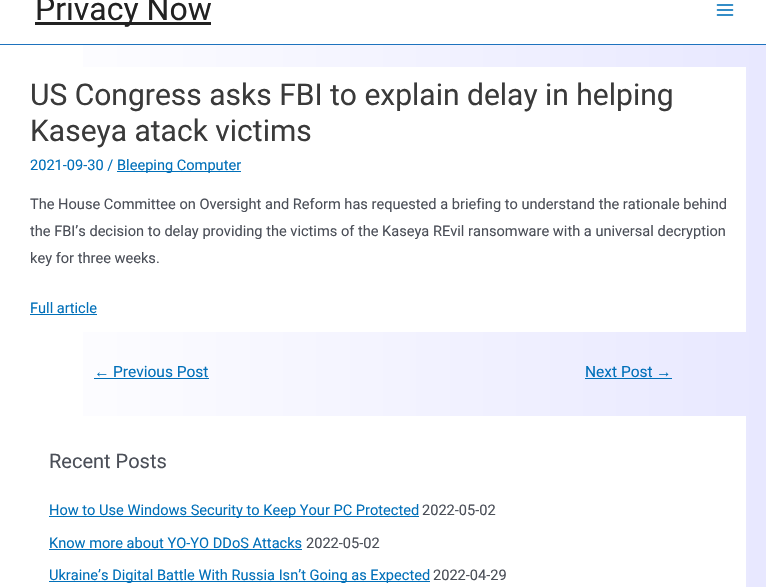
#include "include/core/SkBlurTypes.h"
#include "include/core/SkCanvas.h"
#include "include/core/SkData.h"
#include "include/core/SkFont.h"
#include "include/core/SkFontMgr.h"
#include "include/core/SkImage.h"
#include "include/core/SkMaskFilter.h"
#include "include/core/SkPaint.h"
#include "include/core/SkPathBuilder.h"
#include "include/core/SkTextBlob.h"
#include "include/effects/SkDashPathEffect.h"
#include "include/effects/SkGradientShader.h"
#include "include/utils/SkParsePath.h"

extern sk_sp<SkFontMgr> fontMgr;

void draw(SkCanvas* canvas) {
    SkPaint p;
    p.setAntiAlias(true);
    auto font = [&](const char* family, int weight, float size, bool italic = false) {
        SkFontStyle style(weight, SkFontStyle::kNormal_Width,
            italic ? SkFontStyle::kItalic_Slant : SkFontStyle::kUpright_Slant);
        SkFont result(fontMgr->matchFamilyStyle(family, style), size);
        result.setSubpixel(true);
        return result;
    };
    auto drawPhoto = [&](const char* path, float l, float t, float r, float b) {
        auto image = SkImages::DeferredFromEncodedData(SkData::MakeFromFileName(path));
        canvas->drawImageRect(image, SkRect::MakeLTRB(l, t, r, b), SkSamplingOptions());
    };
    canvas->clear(0xFFFFFFFF);
    {
        const SkColor colors[] = {0xFFFFFFFF, 0xFFE8E8FF};
        const float stops[] = {0, 1};
        const SkPoint ends[] = {{0, 470}, {766, 470}};
        p.setShader(SkGradientShader::MakeLinear(ends, colors, stops, 2, SkTileMode::kClamp));
        p.setAlpha(255);
    }
    canvas->drawRect(SkRect::MakeLTRB(83, 45, 766, 587), p);
    p.setShader(nullptr);
    p.setColor(0xFF1E73BE);
    canvas->drawRect(SkRect::MakeLTRB(0, 44, 766, 45), p);
    p.setColor(0xFF222222);
    canvas->drawRect(SkRect::MakeLTRB(35, 22, 211, 25), p);
    auto font1 = font("Roboto", 400, 32);
    canvas->drawString("Privacy Now", 35, 20, font1, p);
    drawPhoto("media/1.png", 716, 4, 734, 16);
    p.setColor(0xFFFFFFFF);
    canvas->drawRect(SkRect::MakeLTRB(83, 67, 746, 332), p);
    auto font2 = font("Roboto", 400, 30);
    p.setColor(0xFF3A3A3A);
    canvas->drawString("US Congress asks FBI to explain delay in helping", 30, 105, font2, p);
    canvas->drawString("Kaseya atack victims", 30, 141, font2, p);
    auto font3 = font("Roboto", 400, 14.6f);
    p.setColor(0xFF0170B9);
    canvas->drawString("2021-09-30 /", 30, 170, font3, p);
    canvas->drawRect(SkRect::MakeLTRB(117, 171, 241, 172), p);
    canvas->drawString("Bleeping Computer", 117, 170, font3, p);
    p.setColor(0xFF4B4F58);
    {
        const struct { const char* s; float x, y; } items[] = {
            {"The House Committee on Oversight and Reform has requested a briefing to understand the rationale behind", 30, 209},
            {"the FBI’s decision to delay providing the victims of the Kaseya REvil ransomware with a universal decryption", 30, 236},
            {"key for three weeks.", 30, 263},
        };
        for (auto [s, x, y] : items) {
            canvas->drawString(s, x, y, font3, p);
        }
    }
    p.setColor(0xFF0170B9);
    canvas->drawString("Full article", 30, 313, font3, p);
    canvas->drawRect(SkRect::MakeLTRB(30, 314, 97, 315), p);
    auto font4 = font("Liberation Sans", 400, 15.5f);
    canvas->drawString("←", 94, 377, font4, p);
    canvas->drawRect(SkRect::MakeLTRB(94, 378, 209, 379), p);
    auto font5 = font("Roboto", 400, 15.5f);
    canvas->drawString("Previous Post", 113, 377, font5, p);
    canvas->drawString("Next Post", 585, 377, font5, p);
    canvas->drawRect(SkRect::MakeLTRB(585, 378, 672, 379), p);
    canvas->drawString("→", 656, 377, font4, p);
    p.setColor(0xFFFFFFFF);
    canvas->drawRect(SkRect::MakeLTRB(83, 416, 746, 587), p);
    auto font6 = font("Roboto", 400, 20);
    p.setColor(0xFF4B4F58);
    canvas->drawString("Recent Posts", 49, 468, font6, p);
    p.setColor(0xFF0170B9);
    canvas->drawRect(SkRect::MakeLTRB(49, 516, 419, 517), p);
    canvas->drawString("How to Use Windows Security to Keep Your PC Protected", 49, 515, font3, p);
    p.setColor(0xFF4B4F58);
    canvas->drawString("2022-05-02", 422, 515, font3, p);
    p.setColor(0xFF0170B9);
    canvas->drawString("Know more about YO-YO DDoS Attacks", 49, 548, font3, p);
    canvas->drawRect(SkRect::MakeLTRB(49, 549, 302, 550), p);
    p.setColor(0xFF4B4F58);
    canvas->drawString("2022-05-02", 306, 548, font3, p);
    p.setColor(0xFF0170B9);
    canvas->drawRect(SkRect::MakeLTRB(49, 581, 430, 582), p);
    canvas->drawString("Ukraine’s Digital Battle With Russia Isn’t Going as Expected", 49, 580, font3, p);
    p.setColor(0xFF4B4F58);
    canvas->drawString("2022-04-29", 433, 580, font3, p);
}
